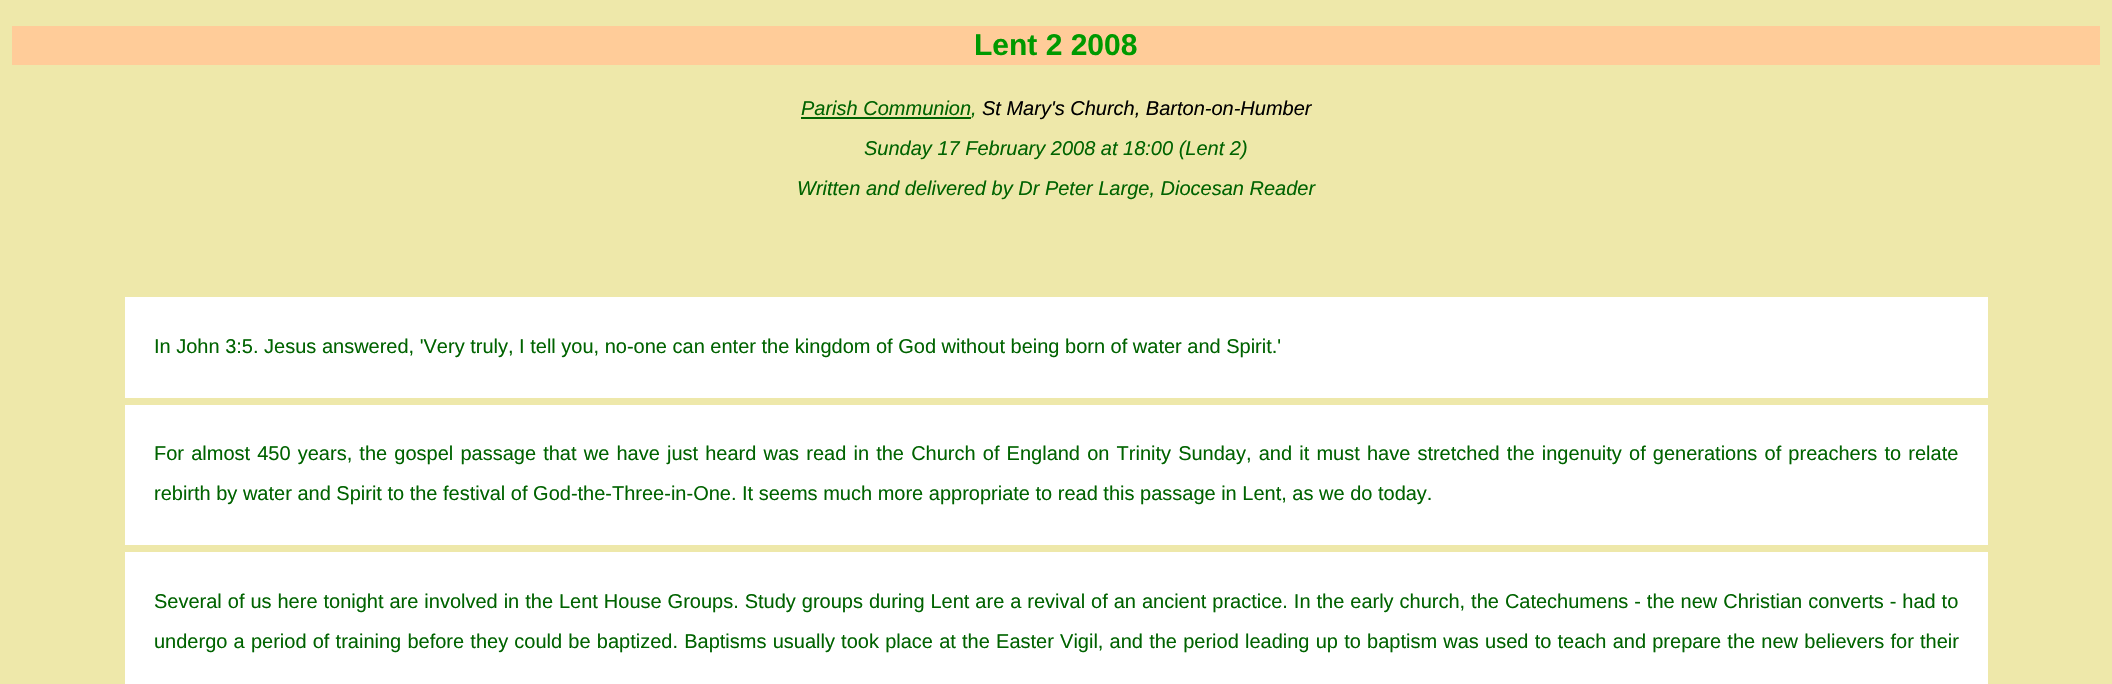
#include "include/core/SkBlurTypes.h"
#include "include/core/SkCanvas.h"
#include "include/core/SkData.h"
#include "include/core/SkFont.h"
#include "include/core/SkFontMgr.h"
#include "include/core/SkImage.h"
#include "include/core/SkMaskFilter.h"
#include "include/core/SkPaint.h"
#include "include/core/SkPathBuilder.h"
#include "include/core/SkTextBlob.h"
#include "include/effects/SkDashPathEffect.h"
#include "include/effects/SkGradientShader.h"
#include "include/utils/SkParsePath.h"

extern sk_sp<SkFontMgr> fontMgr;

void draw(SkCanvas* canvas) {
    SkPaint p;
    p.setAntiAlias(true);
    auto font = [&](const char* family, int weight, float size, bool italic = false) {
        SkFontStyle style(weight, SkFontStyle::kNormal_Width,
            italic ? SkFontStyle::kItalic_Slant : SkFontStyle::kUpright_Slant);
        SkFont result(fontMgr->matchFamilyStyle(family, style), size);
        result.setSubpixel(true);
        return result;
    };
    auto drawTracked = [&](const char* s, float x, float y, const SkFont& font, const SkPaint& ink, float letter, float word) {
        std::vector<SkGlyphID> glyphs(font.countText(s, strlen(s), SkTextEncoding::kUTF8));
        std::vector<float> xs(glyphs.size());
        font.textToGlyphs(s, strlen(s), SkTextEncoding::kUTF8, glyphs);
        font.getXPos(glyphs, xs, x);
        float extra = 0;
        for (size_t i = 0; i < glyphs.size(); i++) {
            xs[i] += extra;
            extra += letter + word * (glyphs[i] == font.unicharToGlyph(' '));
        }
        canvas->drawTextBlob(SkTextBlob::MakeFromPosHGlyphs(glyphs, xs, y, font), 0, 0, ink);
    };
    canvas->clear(0xFFEEE8AA);
    p.setColor(0xFFFFCC99);
    canvas->drawRect(SkRect::MakeLTRB(12, 26, 2100, 65), p);
    auto font1 = font("Liberation Sans", 700, 30);
    p.setColor(0xFF009900);
    canvas->drawString("Lent 2 2008", 974, 55, font1, p);
    p.setColor(0xFF006300);
    canvas->drawRect(SkRect::MakeLTRB(801, 117, 971, 119), p);
    auto font2 = font("Liberation Sans", 400, 20, true);
    canvas->drawString("Parish Communion,", 801, 115, font2, p);
    p.setColor(0xFF000000);
    canvas->drawString("St Mary's Church, Barton-on-Humber", 982, 115, font2, p);
    p.setColor(0xFF006300);
    canvas->drawString("Sunday 17 February 2008 at 18:00 (Lent 2)", 864, 155, font2, p);
    canvas->drawString("Written and delivered by Dr Peter Large, Diocesan Reader", 797, 195, font2, p);
    p.setColor(0xFFFFFFFF);
    canvas->drawRect(SkRect::MakeLTRB(125, 297, 1988, 398), p);
    auto font3 = font("Liberation Sans", 400, 20);
    p.setColor(0xFF006300);
    canvas->drawString("In John 3:5. Jesus answered, 'Very truly, I tell you, no-one can enter the kingdom of God without being born of water and Spirit.'", 154, 353, font3, p);
    p.setColor(0xFFFFFFFF);
    canvas->drawRect(SkRect::MakeLTRB(125, 405, 1988, 545), p);
    p.setColor(0xFF006300);
    drawTracked("For almost 450 years, the gospel passage that we have just heard was read in the Church of England on Trinity Sunday, and it must have stretched the ingenuity of generations of preachers to relate", 154, 460, font3, p, 0, 1.6f);
    canvas->drawString("rebirth by water and Spirit to the festival of God-the-Three-in-One. It seems much more appropriate to read this passage in Lent, as we do today.", 154, 500, font3, p);
    p.setColor(0xFFFFFFFF);
    canvas->drawRect(SkRect::MakeLTRB(125, 552, 1988, 684), p);
    p.setColor(0xFF006300);
    drawTracked("Several of us here tonight are involved in the Lent House Groups. Study groups during Lent are a revival of an ancient practice. In the early church, the Catechumens - the new Christian converts - had to", 154, 608, font3, p, 0, 0.4f);
    drawTracked("undergo a period of training before they could be baptized. Baptisms usually took place at the Easter Vigil, and the period leading up to baptism was used to teach and prepare the new believers for their", 154, 648, font3, p, 0, 0.65f);
}
